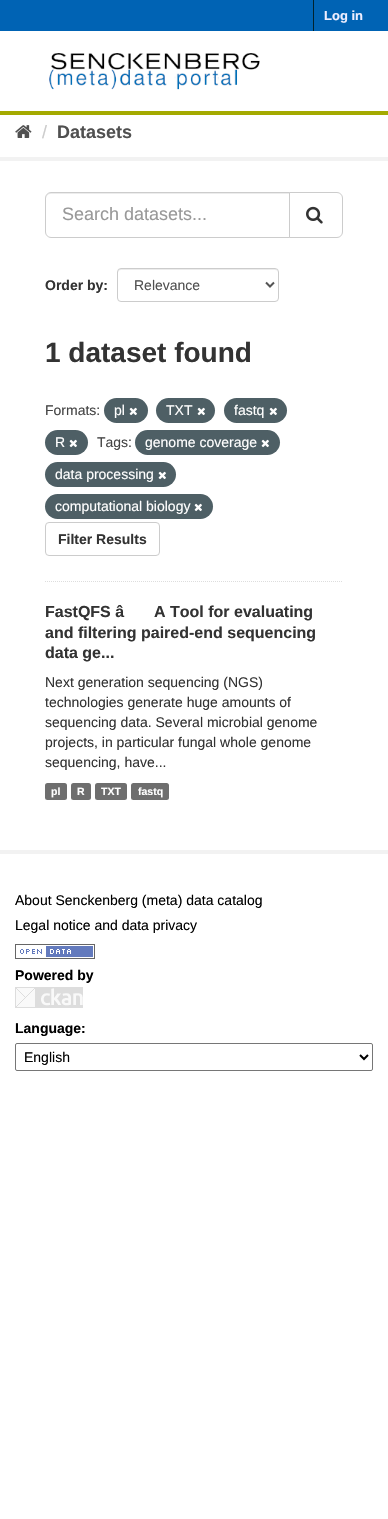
#include "include/core/SkBlurTypes.h"
#include "include/core/SkCanvas.h"
#include "include/core/SkData.h"
#include "include/core/SkFont.h"
#include "include/core/SkFontMgr.h"
#include "include/core/SkImage.h"
#include "include/core/SkMaskFilter.h"
#include "include/core/SkPaint.h"
#include "include/core/SkPathBuilder.h"
#include "include/core/SkTextBlob.h"
#include "include/effects/SkDashPathEffect.h"
#include "include/effects/SkGradientShader.h"
#include "include/utils/SkParsePath.h"

extern sk_sp<SkFontMgr> fontMgr;

void draw(SkCanvas* canvas) {
    SkPaint p;
    p.setAntiAlias(true);
    auto font = [&](const char* family, int weight, float size, bool italic = false) {
        SkFontStyle style(weight, SkFontStyle::kNormal_Width,
            italic ? SkFontStyle::kItalic_Slant : SkFontStyle::kUpright_Slant);
        SkFont result(fontMgr->matchFamilyStyle(family, style), size);
        result.setSubpixel(true);
        return result;
    };
    auto drawPhoto = [&](const char* path, float l, float t, float r, float b) {
        auto image = SkImages::DeferredFromEncodedData(SkData::MakeFromFileName(path));
        canvas->drawImageRect(image, SkRect::MakeLTRB(l, t, r, b), SkSamplingOptions());
    };
    canvas->clear(0xFFFFFFFF);
    p.setColor(0xFF0063B4);
    canvas->drawRect(SkRect::MakeLTRB(0, 0, 388, 31), p);
    p.setColor(0xFF00232E);
    canvas->drawRect(SkRect::MakeLTRB(313, 0, 314, 31), p);
    auto font1 = font("Liberation Sans", 700, 13);
    p.setColor(0xFFEEEEFF);
    canvas->drawString("Log in", 324, 20, font1, p);
    p.setColor(0xFFA4AA00);
    canvas->drawRect(SkRect::MakeLTRB(0, 111, 388, 115), p);
    drawPhoto("media/1.png", 49, 53, 260, 90);
    drawPhoto("media/2.png", 15, 125, 32, 138);
    auto font2 = font("Liberation Sans", 400, 18);
    p.setColor(0xFFCCCCCC);
    canvas->drawString("/", 42, 138, font2, p);
    auto font3 = font("Liberation Sans", 700, 18);
    p.setColor(0xFF505050);
    canvas->drawString("Datasets", 57, 138, font3, p);
    p.setStyle(SkPaint::kStroke_Style);
    p.setStrokeWidth(4);
    p.setColor(0xFFF2F2F2);
    canvas->drawRect(SkRect::MakeLTRB(-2, 159, 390, 852), p);
    p.setStrokeWidth(1);
    p.setColor(0xFFDDDDDD);
    p.setPathEffect(SkDashPathEffect::Make({{1, 1}}, 0));
    canvas->drawPath(SkPathBuilder().moveTo(45, 581.5f).lineTo(343, 581.5f).detach(), p);
    p.setPathEffect(nullptr);
    p.setStyle(SkPaint::kFill_Style);
    p.setColor(0xFFECECEC);
    canvas->drawPath(SkPathBuilder().moveTo(51, 194).lineTo(289, 194).lineTo(289, 193).lineTo(51, 193).cubicTo(48, 193, 46, 195, 46, 198).lineTo(46, 199).cubicTo(46, 196, 48, 194, 51, 194).close().detach(), p);
    p.setStyle(SkPaint::kStroke_Style);
    p.setColor(0xFFCCCCCC);
    canvas->drawPath(SkPathBuilder().moveTo(51, 192.5f).lineTo(289.5f, 192.5f).lineTo(289.5f, 237.5f).lineTo(51, 237.5f).cubicTo(48, 237.5f, 45.5f, 235, 45.5f, 232).lineTo(45.5f, 198).cubicTo(45.5f, 195, 48, 192.5f, 51, 192.5f).close().detach(), p);
    p.setStyle(SkPaint::kFill_Style);
    p.setColor(0xFF999999);
    canvas->drawString("Search datasets...", 62, 220, font2, p);
    p.setColor(0xFFFFFFFF);
    canvas->drawPath(SkPathBuilder().moveTo(289.5f, 192.5f).lineTo(337, 192.5f).cubicTo(340, 192.5f, 342.5f, 195, 342.5f, 198).lineTo(342.5f, 232).cubicTo(342.5f, 235, 340, 237.5f, 337, 237.5f).lineTo(289.5f, 237.5f).close().detach(), p);
    p.setStyle(SkPaint::kStroke_Style);
    p.setColor(0xFFCCCCCC);
    canvas->drawPath(SkPathBuilder().moveTo(289.5f, 192.5f).lineTo(337, 192.5f).cubicTo(340, 192.5f, 342.5f, 195, 342.5f, 198).lineTo(342.5f, 232).cubicTo(342.5f, 235, 340, 237.5f, 337, 237.5f).lineTo(289.5f, 237.5f).close().detach(), p);
    drawPhoto("media/3.png", 306, 206, 323, 224);
    auto font4 = font("Liberation Sans", 700, 14);
    p.setStyle(SkPaint::kFill_Style);
    p.setColor(0xFF333333);
    canvas->drawString("Order by:", 45, 290, font4, p);
    p.setColor(0xFFECECEC);
    canvas->drawPath(SkPathBuilder().moveTo(121, 270).lineTo(275, 270).cubicTo(277, 270, 278, 271, 278, 273).cubicTo(278, 271, 277, 269, 275, 269).lineTo(120, 269).cubicTo(118, 269, 118, 271, 118, 273).cubicTo(118, 271, 119, 270, 121, 270).close().detach(), p);
    p.setStyle(SkPaint::kStroke_Style);
    p.setColor(0xFFCCCCCC);
    canvas->drawRoundRect(SkRect::MakeLTRB(117.5f, 268.5f, 278.5f, 301.5f), 3.5f, 3.5f, p);
    p.setStrokeWidth(2);
    p.setColor(0xFF555555);
    canvas->drawPath(SkPathBuilder().moveTo(266, 282.5f).lineTo(270, 286.5f).lineTo(274, 282.5f).detach(), p);
    auto font5 = font("Liberation Sans", 400, 14);
    p.setStyle(SkPaint::kFill_Style);
    p.setColor(0xFF505050);
    canvas->drawString("Relevance", 134, 290, font5, p);
    auto font6 = font("Liberation Sans", 700, 28);
    p.setColor(0xFF333333);
    canvas->drawString("1 dataset found", 45, 362, font6, p);
    p.setColor(0xFF444444);
    canvas->drawString("Formats:", 45, 415, font5, p);
    p.setColor(0xFF4E5F65);
    canvas->drawRoundRect(SkRect::MakeLTRB(104, 398, 148, 423), 12.5f, 12.5f, p);
    p.setColor(0xFFFFFFFF);
    canvas->drawString("pl", 114, 415, font5, p);
    drawPhoto("media/4.png", 129, 407, 137, 416);
    p.setColor(0xFF4E5F65);
    canvas->drawRoundRect(SkRect::MakeLTRB(156, 398, 215, 423), 12.5f, 12.5f, p);
    p.setColor(0xFFFFFFFF);
    canvas->drawString("TXT", 166, 415, font5, p);
    drawPhoto("media/4.png", 197, 407, 205, 416);
    p.setColor(0xFF4E5F65);
    canvas->drawRoundRect(SkRect::MakeLTRB(224, 398, 287, 423), 12.5f, 12.5f, p);
    p.setColor(0xFFFFFFFF);
    canvas->drawString("fastq", 234, 415, font5, p);
    drawPhoto("media/4.png", 269, 407, 277, 416);
    p.setColor(0xFF4E5F65);
    canvas->drawRoundRect(SkRect::MakeLTRB(45, 430, 88, 455), 12.5f, 12.5f, p);
    p.setColor(0xFFFFFFFF);
    canvas->drawString("R", 55, 447, font5, p);
    drawPhoto("media/4.png", 69, 439, 77, 448);
    p.setColor(0xFF444444);
    canvas->drawString("Tags:", 97, 447, font5, p);
    p.setColor(0xFF4E5F65);
    canvas->drawRoundRect(SkRect::MakeLTRB(135, 430, 280, 455), 12.5f, 12.5f, p);
    p.setColor(0xFFFFFFFF);
    canvas->drawString("genome coverage", 145, 447, font5, p);
    drawPhoto("media/4.png", 261, 439, 269, 448);
    p.setColor(0xFF4E5F65);
    canvas->drawRoundRect(SkRect::MakeLTRB(45, 462, 176, 487), 12.5f, 12.5f, p);
    p.setColor(0xFFFFFFFF);
    canvas->drawString("data processing", 55, 479, font5, p);
    drawPhoto("media/4.png", 158, 471, 166, 480);
    p.setColor(0xFF4E5F65);
    canvas->drawRoundRect(SkRect::MakeLTRB(45, 494, 213, 519), 12.5f, 12.5f, p);
    p.setColor(0xFFFFFFFF);
    canvas->drawString("computational biology", 55, 511, font5, p);
    drawPhoto("media/4.png", 194, 503, 202, 512);
    p.setStyle(SkPaint::kStroke_Style);
    p.setStrokeWidth(1);
    p.setColor(0xFFCCCCCC);
    canvas->drawRoundRect(SkRect::MakeLTRB(45.5f, 522.5f, 159.5f, 555.5f), 3.5f, 3.5f, p);
    p.setStyle(SkPaint::kFill_Style);
    p.setColor(0xFF333333);
    canvas->drawString("Filter Results", 58, 544, font4, p);
    auto font7 = font("Liberation Sans", 700, 16);
    {
        const struct { const char* s; float x, y; } items[] = {
            {"FastQFS â", 45, 617},
            {"A Tool for evaluating", 154, 617},
            {"and filtering paired-end sequencing", 45, 638},
            {"data ge...", 45, 658},
        };
        for (auto [s, x, y] : items) {
            canvas->drawString(s, x, y, font7, p);
        }
    }
    {
        const struct { const char* s; float x, y; } items[] = {
            {"Next generation sequencing (NGS)", 45, 687},
            {"technologies generate huge amounts of", 45, 707},
            {"sequencing data. Several microbial genome", 45, 727},
            {"projects, in particular fungal whole genome", 45, 747},
            {"sequencing, have...", 45, 767},
        };
        for (auto [s, x, y] : items) {
            canvas->drawString(s, x, y, font5, p);
        }
    }
    p.setColor(0xFF6E6E6E);
    canvas->drawRoundRect(SkRect::MakeLTRB(45, 783, 67, 800), 2.5f, 2.5f, p);
    auto font8 = font("Liberation Sans", 700, 10.5f);
    p.setColor(0xFFFFFFFF);
    canvas->drawString("pl", 51, 795, font8, p);
    p.setColor(0xFF6E6E6E);
    canvas->drawRoundRect(SkRect::MakeLTRB(71, 783, 91, 800), 2.5f, 2.5f, p);
    p.setColor(0xFFFFFFFF);
    canvas->drawString("R", 77, 795, font8, p);
    p.setColor(0xFF6E6E6E);
    canvas->drawRoundRect(SkRect::MakeLTRB(95, 783, 127, 800), 2.5f, 2.5f, p);
    p.setColor(0xFFFFFFFF);
    canvas->drawString("TXT", 101, 795, font8, p);
    p.setColor(0xFF6E6E6E);
    canvas->drawRoundRect(SkRect::MakeLTRB(131, 783, 169, 800), 2.5f, 2.5f, p);
    p.setColor(0xFFFFFFFF);
    canvas->drawString("fastq", 138, 795, font8, p);
    p.setColor(0xFF000000);
    canvas->drawString("About Senckenberg (meta) data catalog", 15, 905, font5, p);
    canvas->drawString("Legal notice and data privacy", 15, 930, font5, p);
    drawPhoto("media/5.png", 15, 944, 95, 959);
    canvas->drawString("Powered by", 15, 980, font4, p);
    p.setColor(0xFFDDDDDD);
    canvas->drawRect(SkRect::MakeLTRB(15, 987, 83, 1008), p);
    drawPhoto("media/6.png", 16, 988, 83, 1007);
    p.setColor(0xFF000000);
    canvas->drawString("Language:", 15, 1033, font4, p);
    p.setStyle(SkPaint::kStroke_Style);
    p.setColor(0xFF767676);
    canvas->drawRoundRect(SkRect::MakeLTRB(15.5f, 1043.5f, 372.5f, 1070.5f), 1.5f, 1.5f, p);
    p.setStrokeWidth(2);
    p.setColor(0xFF000000);
    canvas->drawPath(SkPathBuilder().moveTo(360, 1055).lineTo(364, 1059).lineTo(368, 1055).detach(), p);
    p.setStyle(SkPaint::kFill_Style);
    canvas->drawString("English", 24, 1062, font5, p);
}
